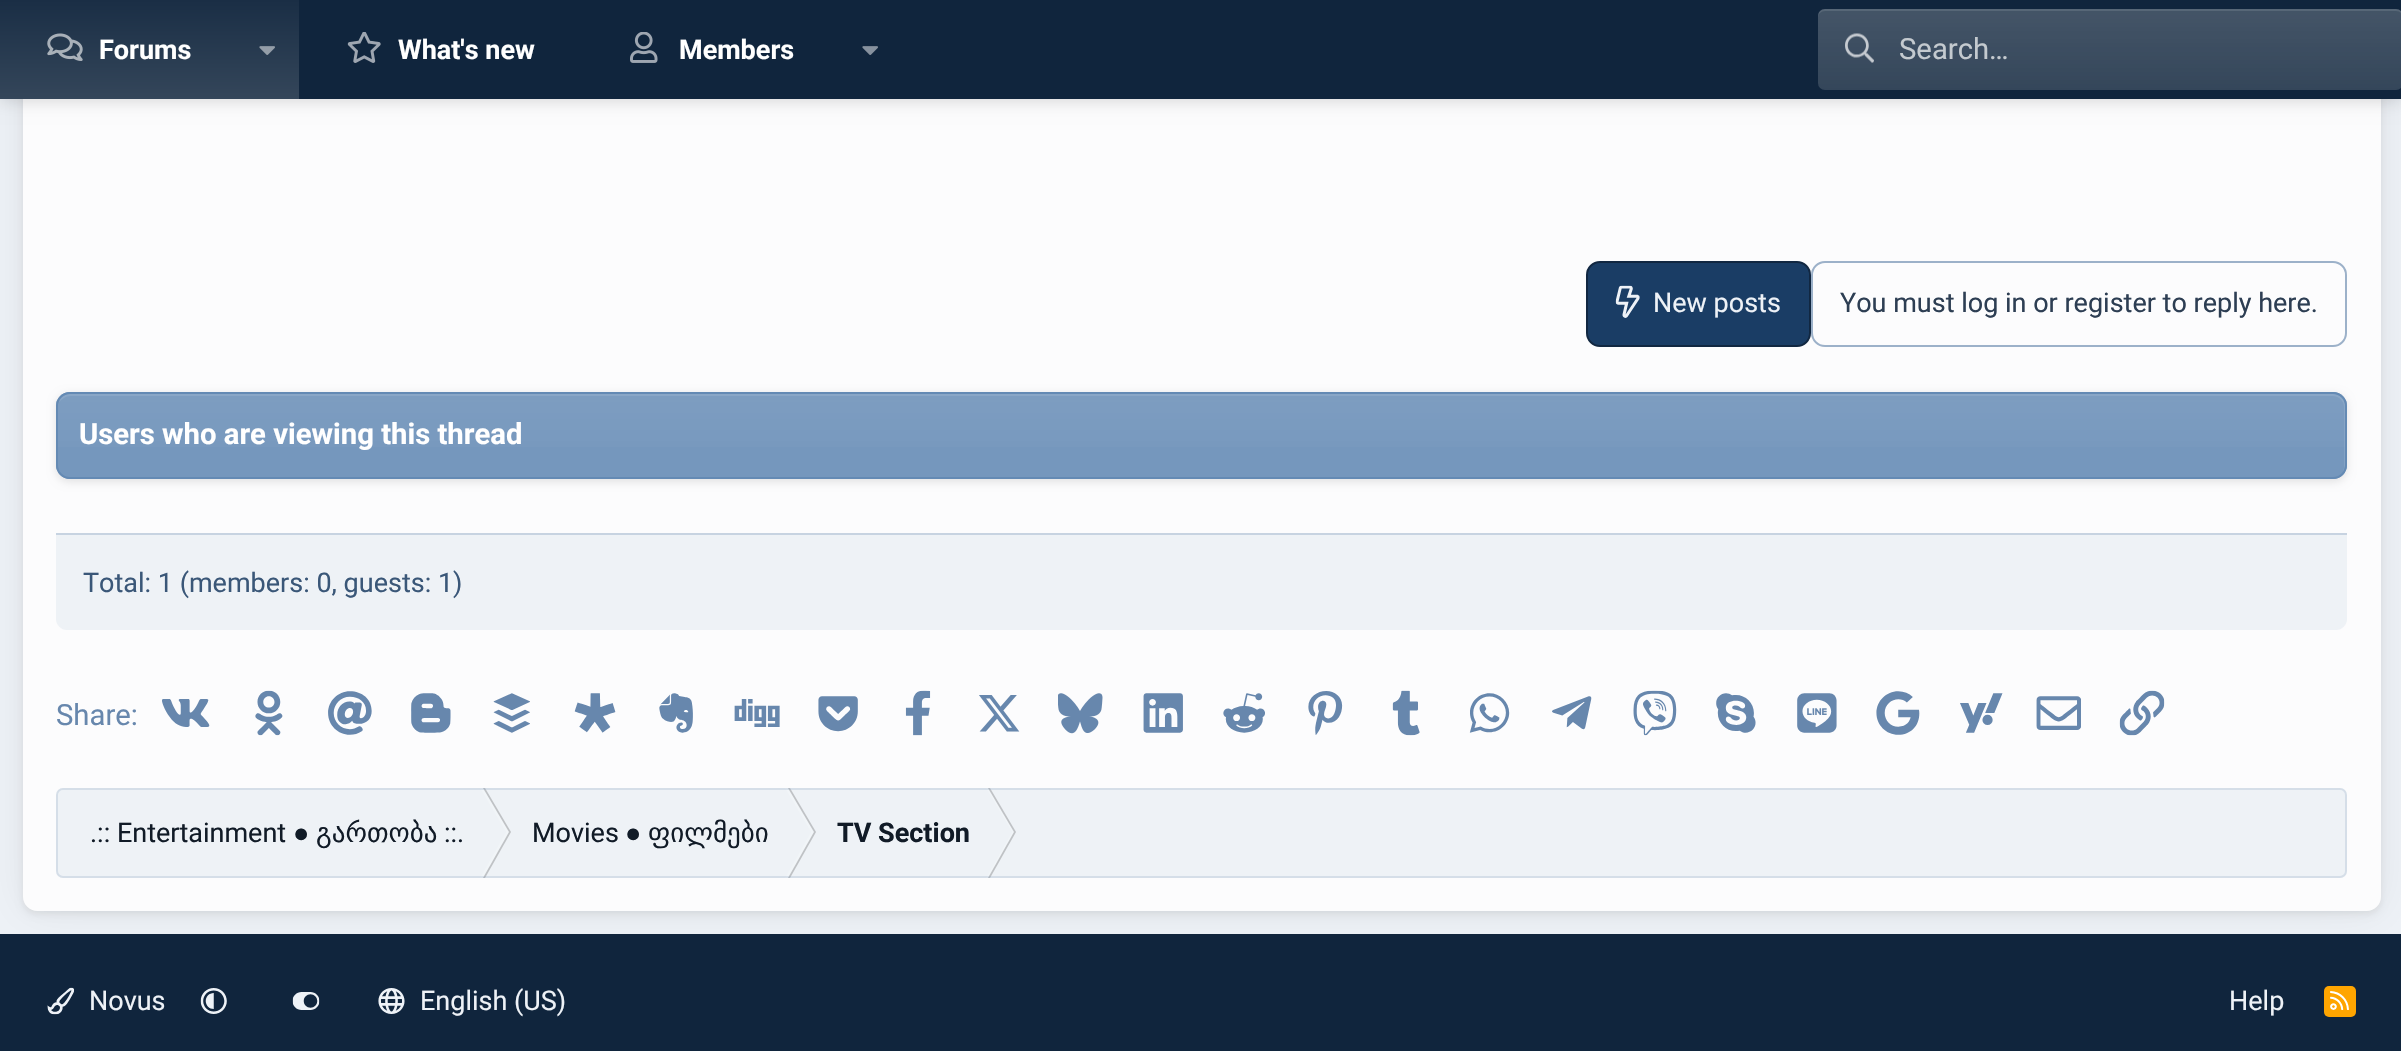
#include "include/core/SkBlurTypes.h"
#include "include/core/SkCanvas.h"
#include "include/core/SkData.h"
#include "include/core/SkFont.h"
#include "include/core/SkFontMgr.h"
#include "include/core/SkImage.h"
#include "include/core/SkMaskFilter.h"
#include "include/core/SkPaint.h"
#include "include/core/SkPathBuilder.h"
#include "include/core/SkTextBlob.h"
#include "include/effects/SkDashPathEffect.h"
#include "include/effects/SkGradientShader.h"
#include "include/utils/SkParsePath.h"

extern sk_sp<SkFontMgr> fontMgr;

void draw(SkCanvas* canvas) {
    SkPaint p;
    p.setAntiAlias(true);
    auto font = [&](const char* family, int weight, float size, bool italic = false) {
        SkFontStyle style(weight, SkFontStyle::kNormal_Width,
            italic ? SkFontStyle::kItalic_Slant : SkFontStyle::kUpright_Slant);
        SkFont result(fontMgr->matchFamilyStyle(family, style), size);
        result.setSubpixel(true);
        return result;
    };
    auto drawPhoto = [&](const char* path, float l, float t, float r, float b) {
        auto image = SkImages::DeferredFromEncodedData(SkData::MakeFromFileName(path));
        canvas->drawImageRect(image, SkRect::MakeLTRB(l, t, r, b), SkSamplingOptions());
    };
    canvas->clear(0xFFEEF2F7);
    p.setColor(0x14000000);
    p.setMaskFilter(SkMaskFilter::MakeBlur(kNormal_SkBlurStyle, 3.5f));
    canvas->drawRoundRect(SkRect::MakeLTRB(23, -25, 2381, 914), 14, 14, p);
    p.setMaskFilter(nullptr);
    p.setColor(0xFF10253D);
    canvas->drawRect(SkRect::MakeLTRB(0, 934, 2401, 1051), p);
    p.setColor(0x0F000000);
    p.setMaskFilter(SkMaskFilter::MakeBlur(kNormal_SkBlurStyle, 22.5f));
    canvas->drawRoundRect(SkRect::MakeLTRB(23, -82, 2381, 911), 14, 14, p);
    p.setMaskFilter(nullptr);
    p.setColor(0xFFFCFCFD);
    canvas->drawPath(SkPathBuilder().moveTo(23, -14).lineTo(2381, -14).lineTo(2381, 897).cubicTo(2381, 904.5f, 2374.5f, 911, 2367, 911).lineTo(37, 911).cubicTo(29.5f, 911, 23, 904.5f, 23, 897).close().detach(), p);
    p.setColor(0x26000000);
    p.setMaskFilter(SkMaskFilter::MakeBlur(kNormal_SkBlurStyle, 8));
    canvas->drawRect(SkRect::MakeLTRB(0, 2, 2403, 101), p);
    p.setMaskFilter(nullptr);
    p.setColor(0xFF10253D);
    canvas->drawRect(SkRect::MakeLTRB(299, 0, 2401, 99), p);
    {
        const SkColor colors[] = {0xFF1A2E45, 0xFF34465A};
        const float stops[] = {0, 1};
        const SkPoint ends[] = {{150, 0}, {150, 99}};
        p.setShader(SkGradientShader::MakeLinear(ends, colors, stops, 2, SkTileMode::kClamp));
        p.setAlpha(255);
    }
    canvas->drawRect(SkRect::MakeLTRB(0, 0, 299, 99), p);
    drawPhoto("media/1.png", 47, 33, 83, 61);
    auto font1 = font("Roboto", 700, 27);
    p.setShader(nullptr);
    p.setColor(0xFFFFFFFF);
    canvas->drawString("Forums", 99, 59, font1, p);
    drawPhoto("media/2.png", 259, 46, 275, 55);
    drawPhoto("media/3.png", 347, 32, 381, 63);
    canvas->drawString("What's new", 398, 59, font1, p);
    drawPhoto("media/4.png", 630, 32, 658, 63);
    canvas->drawString("Members", 679, 59, font1, p);
    drawPhoto("media/5.png", 862, 46, 878, 55);
    p.setColor(0xFF34465A);
    canvas->drawRoundRect(SkRect::MakeLTRB(1818, 9, 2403, 90), 7, 7, p);
    {
        const SkColor colors[] = {0x14FFFFFF, 0x00FFFFFF};
        const float stops[] = {0, 1};
        const SkPoint ends[] = {{2111, 9}, {2111, 90}};
        p.setShader(SkGradientShader::MakeLinear(ends, colors, stops, 2, SkTileMode::kClamp));
        p.setAlpha(255);
    }
    canvas->drawRoundRect(SkRect::MakeLTRB(1818, 9, 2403, 90), 7, 7, p);
    p.setShader(nullptr);
    p.setColor(0x1AFFFFFF);
    canvas->drawPath(SkPathBuilder().moveTo(1825, 11).lineTo(2396, 11).cubicTo(2400, 11, 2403, 14, 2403, 18).lineTo(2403, 16).cubicTo(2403, 12, 2400, 9, 2396, 9).lineTo(1825, 9).cubicTo(1821, 9, 1818, 12, 1818, 16).lineTo(1818, 18).cubicTo(1818, 14, 1821, 11, 1825, 11).close().detach(), p);
    drawPhoto("media/6.png", 1845, 33, 1874, 63);
    auto font2 = font("Roboto", 400, 29.25f);
    p.setColor(0xFFC4CACF);
    canvas->drawString("Search…", 1899, 59, font2, p);
    p.setColor(0xFF1A3D65);
    canvas->drawRoundRect(SkRect::MakeLTRB(1587, 262, 1810, 346), 13, 13, p);
    p.setStyle(SkPaint::kStroke_Style);
    p.setStrokeWidth(2);
    p.setColor(0xFF112741);
    canvas->drawRoundRect(SkRect::MakeLTRB(1587, 262, 1810, 346), 13, 13, p);
    drawPhoto("media/7.png", 1615, 285, 1640, 318);
    auto font3 = font("Roboto", 400, 27);
    p.setStyle(SkPaint::kFill_Style);
    p.setColor(0xFFEEF2F7);
    canvas->drawString("New posts", 1653, 312, font3, p);
    p.setStyle(SkPaint::kStroke_Style);
    p.setColor(0xFF9CB1C9);
    canvas->drawRoundRect(SkRect::MakeLTRB(1812, 262, 2346, 346), 13, 13, p);
    p.setStyle(SkPaint::kFill_Style);
    p.setColor(0xFF2D3E53);
    canvas->drawString("You must log in or register to reply here.", 1840, 312, font3, p);
    p.setColor(0x1A000000);
    p.setMaskFilter(SkMaskFilter::MakeBlur(kNormal_SkBlurStyle, 4.5f));
    canvas->drawRoundRect(SkRect::MakeLTRB(56, 394, 2347, 482), 14, 14, p);
    p.setMaskFilter(nullptr);
    p.setColor(0xFF7597BD);
    canvas->drawRoundRect(SkRect::MakeLTRB(56, 392, 2347, 479), 14, 14, p);
    {
        const SkColor colors[] = {0x0FFFFFFF, 0x00FFFFFF};
        const float stops[] = {0, 1};
        const SkPoint ends[] = {{1202, 394}, {1202, 477}};
        p.setShader(SkGradientShader::MakeLinear(ends, colors, stops, 2, SkTileMode::kClamp));
        p.setAlpha(255);
    }
    canvas->drawRect(SkRect::MakeLTRB(56, 394, 2347, 447), p);
    p.setShader(nullptr);
    p.setColor(0x1AFFFFFF);
    canvas->drawPath(SkPathBuilder().moveTo(70, 396).lineTo(2333, 396).cubicTo(2339, 396, 2344, 401, 2344, 407).lineTo(2344, 468).lineTo(2343, 472).cubicTo(2344, 470, 2345, 468, 2345, 466).lineTo(2345, 405).cubicTo(2345, 399, 2340, 394, 2334, 394).lineTo(70, 394).cubicTo(65, 394, 61, 397, 59, 402).cubicTo(62, 399, 66, 396, 70, 396).close().detach(), p);
    p.setStyle(SkPaint::kStroke_Style);
    p.setColor(0xFF648AB4);
    canvas->drawRoundRect(SkRect::MakeLTRB(57, 393, 2346, 478), 13, 13, p);
    auto font4 = font("Roboto", 700, 29.25f);
    p.setStyle(SkPaint::kFill_Style);
    p.setColor(0xFFFFFFFF);
    canvas->drawString("Users who are viewing this thread", 79, 444, font4, p);
    p.setColor(0xFFEEF2F6);
    canvas->drawPath(SkPathBuilder().moveTo(56, 533).lineTo(2347, 533).lineTo(2347, 619).cubicTo(2347, 625, 2342, 630, 2336, 630).lineTo(67, 630).cubicTo(61, 630, 56, 625, 56, 619).close().detach(), p);
    p.setColor(0xFFC7D3E1);
    canvas->drawRect(SkRect::MakeLTRB(56, 533, 2347, 535), p);
    p.setColor(0xFF3A5778);
    canvas->drawString("Total: 1 (members: 0, guests: 1)", 83, 592, font3, p);
    p.setColor(0xFF6787AD);
    canvas->drawString("Share:", 56, 725, font2, p);
    drawPhoto("media/8.png", 162, 699, 210, 727);
    drawPhoto("media/9.png", 255, 690, 283, 736);
    drawPhoto("media/10.png", 328, 691, 372, 735);
    drawPhoto("media/11.png", 411, 693, 451, 733);
    drawPhoto("media/12.png", 493, 693, 530, 733);
    drawPhoto("media/13.png", 574, 693, 616, 733);
    drawPhoto("media/14.png", 659, 693, 693, 733);
    drawPhoto("media/15.png", 734, 699, 780, 727);
    drawPhoto("media/16.png", 818, 696, 858, 732);
    drawPhoto("media/17.png", 905, 690, 931, 736);
    drawPhoto("media/18.png", 979, 695, 1020, 732);
    drawPhoto("media/19.png", 1058, 693, 1103, 734);
    drawPhoto("media/20.png", 1143, 693, 1183, 733);
    drawPhoto("media/21.png", 1223, 693, 1265, 733);
    drawPhoto("media/22.png", 1308, 691, 1343, 735);
    drawPhoto("media/23.png", 1392, 690, 1420, 736);
    drawPhoto("media/24.png", 1469, 693, 1510, 733);
    drawPhoto("media/25.png", 1552, 696, 1592, 730);
    drawPhoto("media/26.png", 1633, 690, 1677, 736);
    drawPhoto("media/27.png", 1716, 693, 1756, 733);
    drawPhoto("media/28.png", 1797, 693, 1837, 733);
    drawPhoto("media/29.png", 1876, 691, 1920, 735);
    drawPhoto("media/30.png", 1960, 693, 2003, 733);
    drawPhoto("media/31.png", 2036, 696, 2081, 730);
    drawPhoto("media/32.png", 2119, 690, 2165, 736);
    p.setColor(0xFFEEF2F6);
    canvas->drawRoundRect(SkRect::MakeLTRB(56, 788, 2347, 878), 7, 7, p);
    p.setColor(0xFFF1F5F8);
    canvas->drawPath(SkPathBuilder().moveTo(480, 788).lineTo(483, 788).lineTo(509, 832).lineTo(506, 832).close().detach(), p);
    p.setColor(0xFFBFC2C5);
    canvas->drawPath(SkPathBuilder().moveTo(483, 788).lineTo(485, 788).lineTo(511, 832).lineTo(509, 832).close().detach(), p);
    p.setColor(0xFFF1F5F8);
    canvas->drawPath(SkPathBuilder().moveTo(506, 832).lineTo(509, 832).lineTo(483, 878).lineTo(480, 878).close().detach(), p);
    p.setColor(0xFFBFC2C5);
    canvas->drawPath(SkPathBuilder().moveTo(509, 832).lineTo(511, 832).lineTo(485, 878).lineTo(483, 878).close().detach(), p);
    p.setColor(0xFFF1F5F8);
    canvas->drawPath(SkPathBuilder().moveTo(785, 788).lineTo(788, 788).lineTo(814, 832).lineTo(811, 832).close().detach(), p);
    p.setColor(0xFFBFC2C5);
    canvas->drawPath(SkPathBuilder().moveTo(788, 788).lineTo(790, 788).lineTo(816, 832).lineTo(814, 832).close().detach(), p);
    p.setColor(0xFFF1F5F8);
    canvas->drawPath(SkPathBuilder().moveTo(811, 832).lineTo(814, 832).lineTo(788, 878).lineTo(785, 878).close().detach(), p);
    p.setColor(0xFFBFC2C5);
    canvas->drawPath(SkPathBuilder().moveTo(814, 832).lineTo(816, 832).lineTo(790, 878).lineTo(788, 878).close().detach(), p);
    p.setColor(0xFFF1F5F8);
    canvas->drawPath(SkPathBuilder().moveTo(986, 788).lineTo(988, 788).lineTo(1014, 832).lineTo(1012, 832).close().detach(), p);
    p.setColor(0xFFBFC2C5);
    canvas->drawPath(SkPathBuilder().moveTo(988, 788).lineTo(990, 788).lineTo(1016, 832).lineTo(1014, 832).close().detach(), p);
    p.setColor(0xFFF1F5F8);
    canvas->drawPath(SkPathBuilder().moveTo(1012, 832).lineTo(1014, 832).lineTo(988, 878).lineTo(986, 878).close().detach(), p);
    p.setColor(0xFFBFC2C5);
    canvas->drawPath(SkPathBuilder().moveTo(1014, 832).lineTo(1016, 832).lineTo(990, 878).lineTo(988, 878).close().detach(), p);
    p.setStyle(SkPaint::kStroke_Style);
    p.setColor(0x408BA4C1);
    canvas->drawRoundRect(SkRect::MakeLTRB(57, 789, 2346, 877), 6, 6, p);
    p.setStyle(SkPaint::kFill_Style);
    p.setColor(0xFF111B27);
    canvas->drawString(".:: Entertainment", 90, 842, font3, p);
    auto font5 = font("Liberation Sans", 400, 27);
    canvas->drawString("●", 293, 842, font5, p);
    auto font6 = font("DejaVu Sans", 400, 27);
    canvas->drawString("გართობა", 316, 842, font6, p);
    canvas->drawString("::.", 444, 842, font3, p);
    canvas->drawString("Movies", 532, 842, font3, p);
    canvas->drawString("●", 625, 842, font5, p);
    canvas->drawString("ფილმები", 648, 842, font6, p);
    canvas->drawString("TV Section", 837, 842, font1, p);
    drawPhoto("media/33.png", 47, 987, 74, 1015);
    p.setColor(0xFFEEF2F7);
    canvas->drawString("Novus", 89, 1010, font3, p);
    drawPhoto("media/34.png", 200, 988, 227, 1014);
    drawPhoto("media/35.png", 292, 992, 320, 1010);
    drawPhoto("media/36.png", 378, 988, 405, 1014);
    canvas->drawString("English (US)", 420, 1010, font3, p);
    canvas->drawString("Help", 2229, 1010, font3, p);
    p.setColor(0xFFFFA500);
    canvas->drawRoundRect(SkRect::MakeLTRB(2324, 986, 2356, 1017), 5, 5, p);
    drawPhoto("media/37.png", 2330, 991, 2349, 1010);
}
